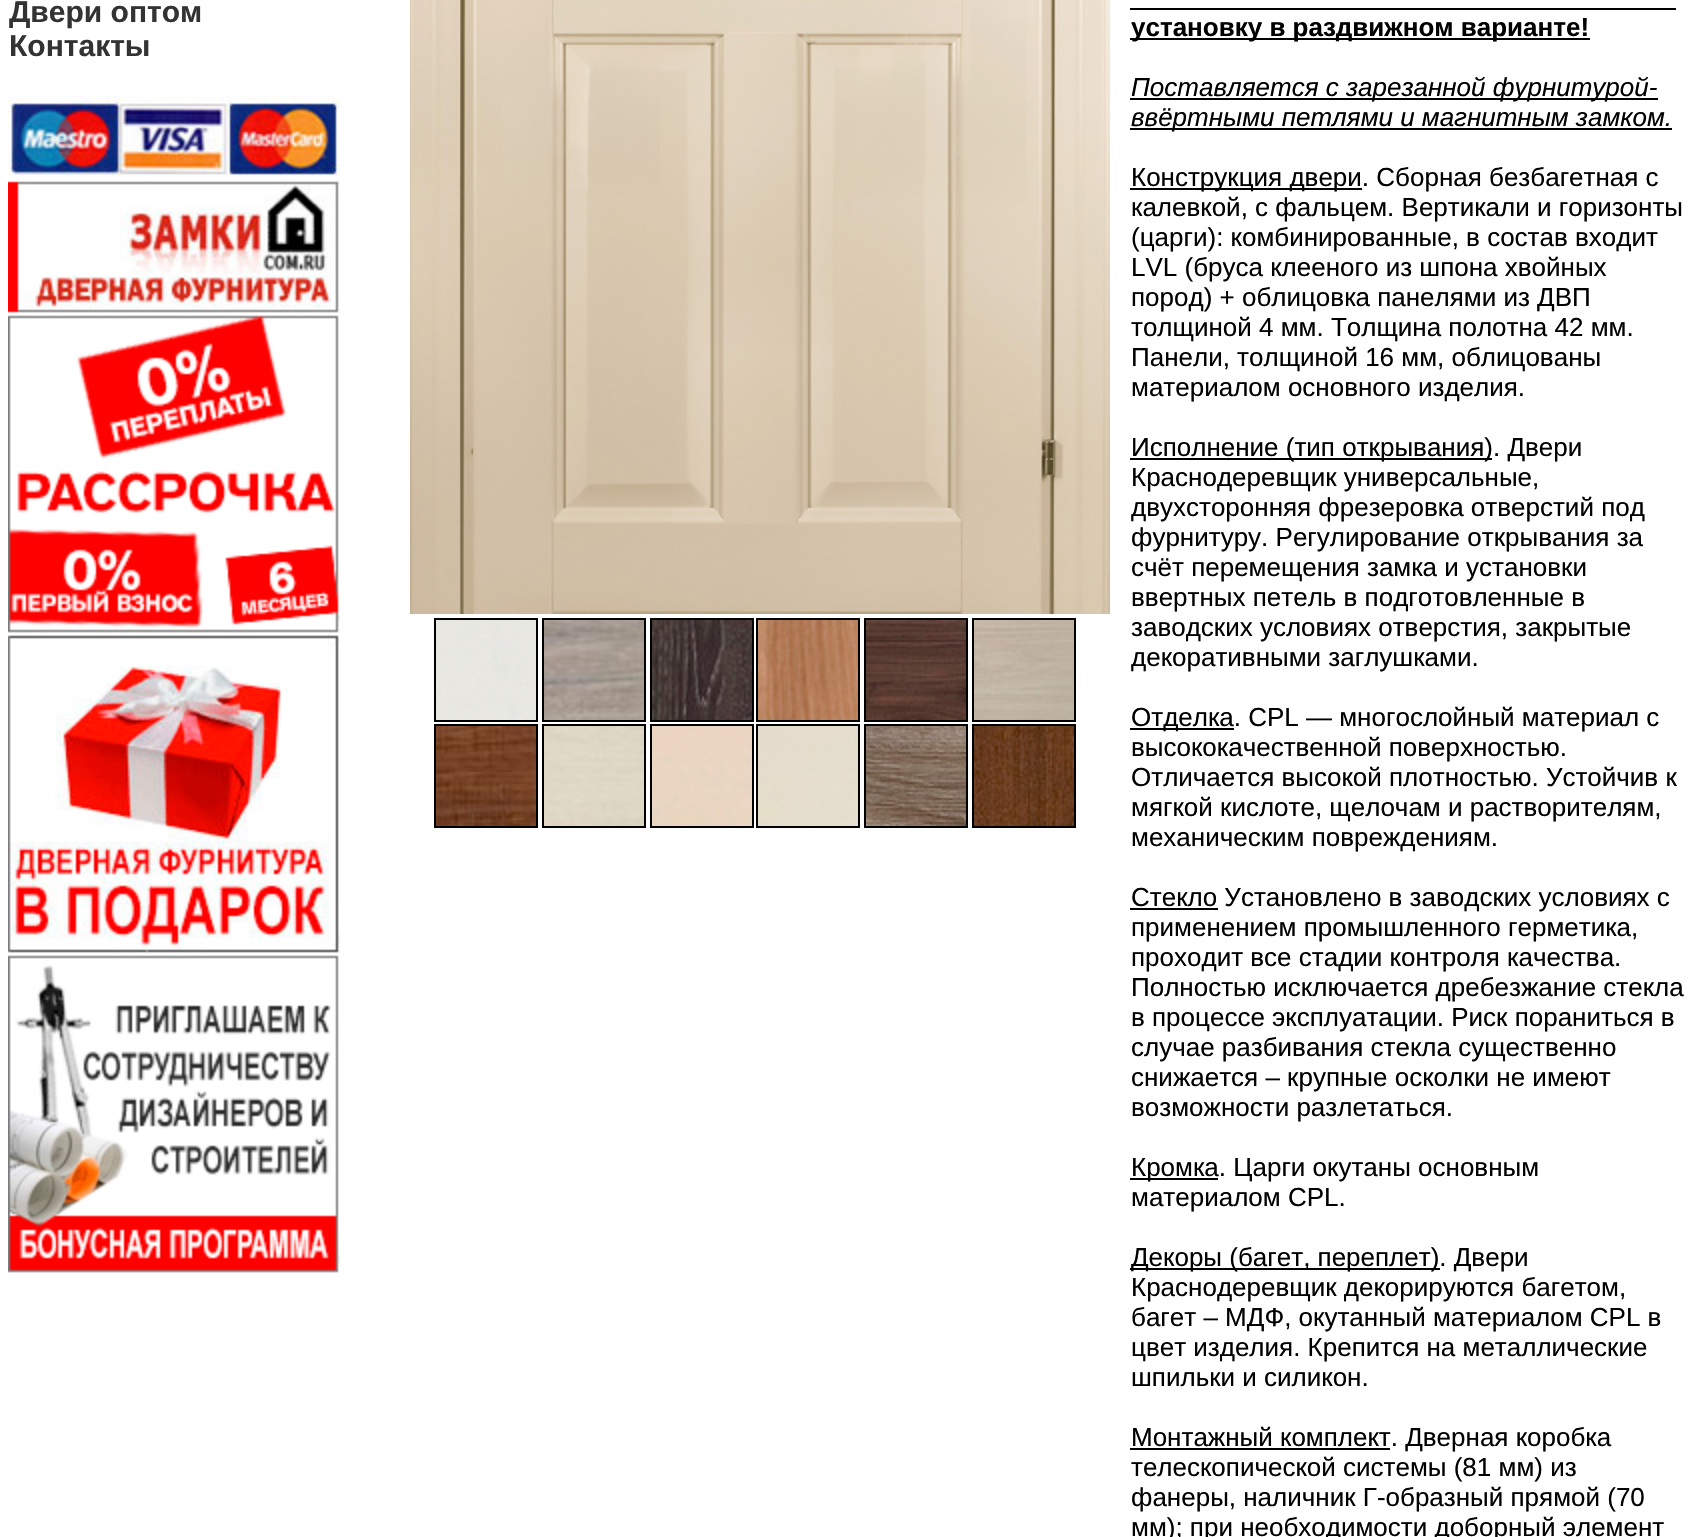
#include "include/core/SkBlurTypes.h"
#include "include/core/SkCanvas.h"
#include "include/core/SkData.h"
#include "include/core/SkFont.h"
#include "include/core/SkFontMgr.h"
#include "include/core/SkImage.h"
#include "include/core/SkMaskFilter.h"
#include "include/core/SkPaint.h"
#include "include/core/SkPathBuilder.h"
#include "include/core/SkTextBlob.h"
#include "include/effects/SkDashPathEffect.h"
#include "include/effects/SkGradientShader.h"
#include "include/utils/SkParsePath.h"

extern sk_sp<SkFontMgr> fontMgr;

void draw(SkCanvas* canvas) {
    SkPaint p;
    p.setAntiAlias(true);
    auto font = [&](const char* family, int weight, float size, bool italic = false) {
        SkFontStyle style(weight, SkFontStyle::kNormal_Width,
            italic ? SkFontStyle::kItalic_Slant : SkFontStyle::kUpright_Slant);
        SkFont result(fontMgr->matchFamilyStyle(family, style), size);
        result.setSubpixel(true);
        return result;
    };
    auto drawPhoto = [&](const char* path, float l, float t, float r, float b) {
        auto image = SkImages::DeferredFromEncodedData(SkData::MakeFromFileName(path));
        canvas->drawImageRect(image, SkRect::MakeLTRB(l, t, r, b), SkSamplingOptions());
    };
    canvas->clear(0xFFFFFFFF);
    auto font1 = font("Liberation Sans", 700, 30);
    p.setColor(0xFF333333);
    canvas->drawString("Двери оптом", 9, 22, font1, p);
    canvas->drawString("Контакты", 9, 56, font1, p);
    drawPhoto("media/1.png", 8, 96, 340, 177);
    drawPhoto("media/2.png", 8, 180, 340, 314);
    drawPhoto("media/3.png", 8, 315, 340, 633);
    drawPhoto("media/4.png", 8, 634, 340, 954);
    drawPhoto("media/5.png", 8, 955, 340, 1273);
    drawPhoto("media/6.png", 410, 0, 1110, 614);
    drawPhoto("media/7.png", 436, 620, 536, 720);
    p.setStyle(SkPaint::kStroke_Style);
    p.setStrokeWidth(2);
    p.setColor(0xFF000000);
    canvas->drawRect(SkRect::MakeLTRB(435, 619, 537, 721), p);
    drawPhoto("media/8.png", 544, 620, 644, 720);
    canvas->drawRect(SkRect::MakeLTRB(543, 619, 645, 721), p);
    drawPhoto("media/9.png", 652, 620, 752, 720);
    canvas->drawRect(SkRect::MakeLTRB(651, 619, 753, 721), p);
    drawPhoto("media/10.png", 758, 620, 858, 720);
    canvas->drawRect(SkRect::MakeLTRB(757, 619, 859, 721), p);
    drawPhoto("media/11.png", 866, 620, 966, 720);
    canvas->drawRect(SkRect::MakeLTRB(865, 619, 967, 721), p);
    drawPhoto("media/12.png", 974, 620, 1074, 720);
    canvas->drawRect(SkRect::MakeLTRB(973, 619, 1075, 721), p);
    drawPhoto("media/13.png", 436, 726, 536, 826);
    canvas->drawRect(SkRect::MakeLTRB(435, 725, 537, 827), p);
    drawPhoto("media/14.png", 544, 726, 644, 826);
    canvas->drawRect(SkRect::MakeLTRB(543, 725, 645, 827), p);
    drawPhoto("media/15.png", 652, 726, 752, 826);
    canvas->drawRect(SkRect::MakeLTRB(651, 725, 753, 827), p);
    drawPhoto("media/16.png", 758, 726, 858, 826);
    canvas->drawRect(SkRect::MakeLTRB(757, 725, 859, 827), p);
    drawPhoto("media/17.png", 866, 726, 966, 826);
    canvas->drawRect(SkRect::MakeLTRB(865, 725, 967, 827), p);
    drawPhoto("media/18.png", 974, 726, 1074, 826);
    canvas->drawRect(SkRect::MakeLTRB(973, 725, 1075, 827), p);
    p.setStyle(SkPaint::kFill_Style);
    canvas->drawRect(SkRect::MakeLTRB(1130, 38, 1590, 40), p);
    auto font2 = font("Liberation Sans", 700, 26);
    canvas->drawString("установку в раздвижном варианте!", 1131, 36, font2, p);
    canvas->drawRect(SkRect::MakeLTRB(1130, 8, 1676, 10), p);
    canvas->drawRect(SkRect::MakeLTRB(1130, 98, 1658, 100), p);
    auto font3 = font("Liberation Sans", 400, 26, true);
    canvas->drawString("Поставляется с зарезанной фурнитурой-", 1131, 96, font3, p);
    canvas->drawRect(SkRect::MakeLTRB(1130, 128, 1672, 130), p);
    canvas->drawString("ввёртными петлями и магнитным замком.", 1131, 126, font3, p);
    canvas->drawRect(SkRect::MakeLTRB(1130, 188, 1362, 190), p);
    auto font4 = font("Liberation Sans", 400, 26);
    {
        const struct { const char* s; float x, y; } items[] = {
            {"Конструкция двери. Сборная безбагетная с", 1131, 186},
            {"калевкой, с фальцем. Вертикали и горизонты", 1131, 216},
            {"(царги): комбинированные, в состав входит", 1131, 246},
            {"LVL (бруса клееного из шпона хвойных", 1131, 276},
            {"пород) + облицовка панелями из ДВП", 1131, 306},
            {"толщиной 4 мм. Толщина полотна 42 мм.", 1131, 336},
            {"Панели, толщиной 16 мм, облицованы", 1131, 366},
            {"материалом основного изделия.", 1131, 396},
        };
        for (auto [s, x, y] : items) {
            canvas->drawString(s, x, y, font4, p);
        }
    }
    canvas->drawRect(SkRect::MakeLTRB(1130, 458, 1492, 460), p);
    {
        const struct { const char* s; float x, y; } items[] = {
            {"Исполнение (тип открывания). Двери", 1131, 456},
            {"Краснодеревщик универсальные,", 1131, 486},
            {"двухсторонняя фрезеровка отверстий под", 1131, 516},
            {"фурнитуру. Регулирование открывания за", 1131, 546},
            {"счёт перемещения замка и установки", 1131, 576},
            {"ввертных петель в подготовленные в", 1131, 606},
            {"заводских условиях отверстия, закрытые", 1131, 636},
            {"декоративными заглушками.", 1131, 666},
        };
        for (auto [s, x, y] : items) {
            canvas->drawString(s, x, y, font4, p);
        }
    }
    canvas->drawRect(SkRect::MakeLTRB(1130, 728, 1234, 730), p);
    {
        const struct { const char* s; float x, y; } items[] = {
            {"Отделка. CPL — многослойный материал с", 1131, 726},
            {"высококачественной поверхностью.", 1131, 756},
            {"Отличается высокой плотностью. Устойчив к", 1131, 786},
            {"мягкой кислоте, щелочам и растворителям,", 1131, 816},
            {"механическим повреждениям.", 1131, 846},
        };
        for (auto [s, x, y] : items) {
            canvas->drawString(s, x, y, font4, p);
        }
    }
    canvas->drawRect(SkRect::MakeLTRB(1130, 908, 1218, 910), p);
    {
        const struct { const char* s; float x, y; } items[] = {
            {"Стекло Установлено в заводских условиях с", 1131, 906},
            {"применением промышленного герметика,", 1131, 936},
            {"проходит все стадии контроля качества.", 1131, 966},
            {"Полностью исключается дребезжание стекла", 1131, 996},
            {"в процессе эксплуатации. Риск пораниться в", 1131, 1026},
            {"случае разбивания стекла существенно", 1131, 1056},
            {"снижается – крупные осколки не имеют", 1131, 1086},
            {"возможности разлетаться.", 1131, 1116},
        };
        for (auto [s, x, y] : items) {
            canvas->drawString(s, x, y, font4, p);
        }
    }
    canvas->drawRect(SkRect::MakeLTRB(1130, 1178, 1218, 1180), p);
    canvas->drawString("Кромка. Царги окутаны основным", 1131, 1176, font4, p);
    canvas->drawString("материалом CPL.", 1131, 1206, font4, p);
    canvas->drawRect(SkRect::MakeLTRB(1130, 1268, 1440, 1270), p);
    {
        const struct { const char* s; float x, y; } items[] = {
            {"Декоры (багет, переплет). Двери", 1131, 1266},
            {"Краснодеревщик декорируются багетом,", 1131, 1296},
            {"багет – МДФ, окутанный материалом CPL в", 1131, 1326},
            {"цвет изделия. Крепится на металлические", 1131, 1356},
            {"шпильки и силикон.", 1131, 1386},
        };
        for (auto [s, x, y] : items) {
            canvas->drawString(s, x, y, font4, p);
        }
    }
    canvas->drawRect(SkRect::MakeLTRB(1130, 1448, 1390, 1450), p);
    {
        const struct { const char* s; float x, y; } items[] = {
            {"Монтажный комплект. Дверная коробка", 1131, 1446},
            {"телескопической системы (81 мм) из", 1131, 1476},
            {"фанеры, наличник Г-образный прямой (70", 1131, 1506},
            {"мм); при необходимости доборный элемент", 1131, 1536},
        };
        for (auto [s, x, y] : items) {
            canvas->drawString(s, x, y, font4, p);
        }
    }
}
